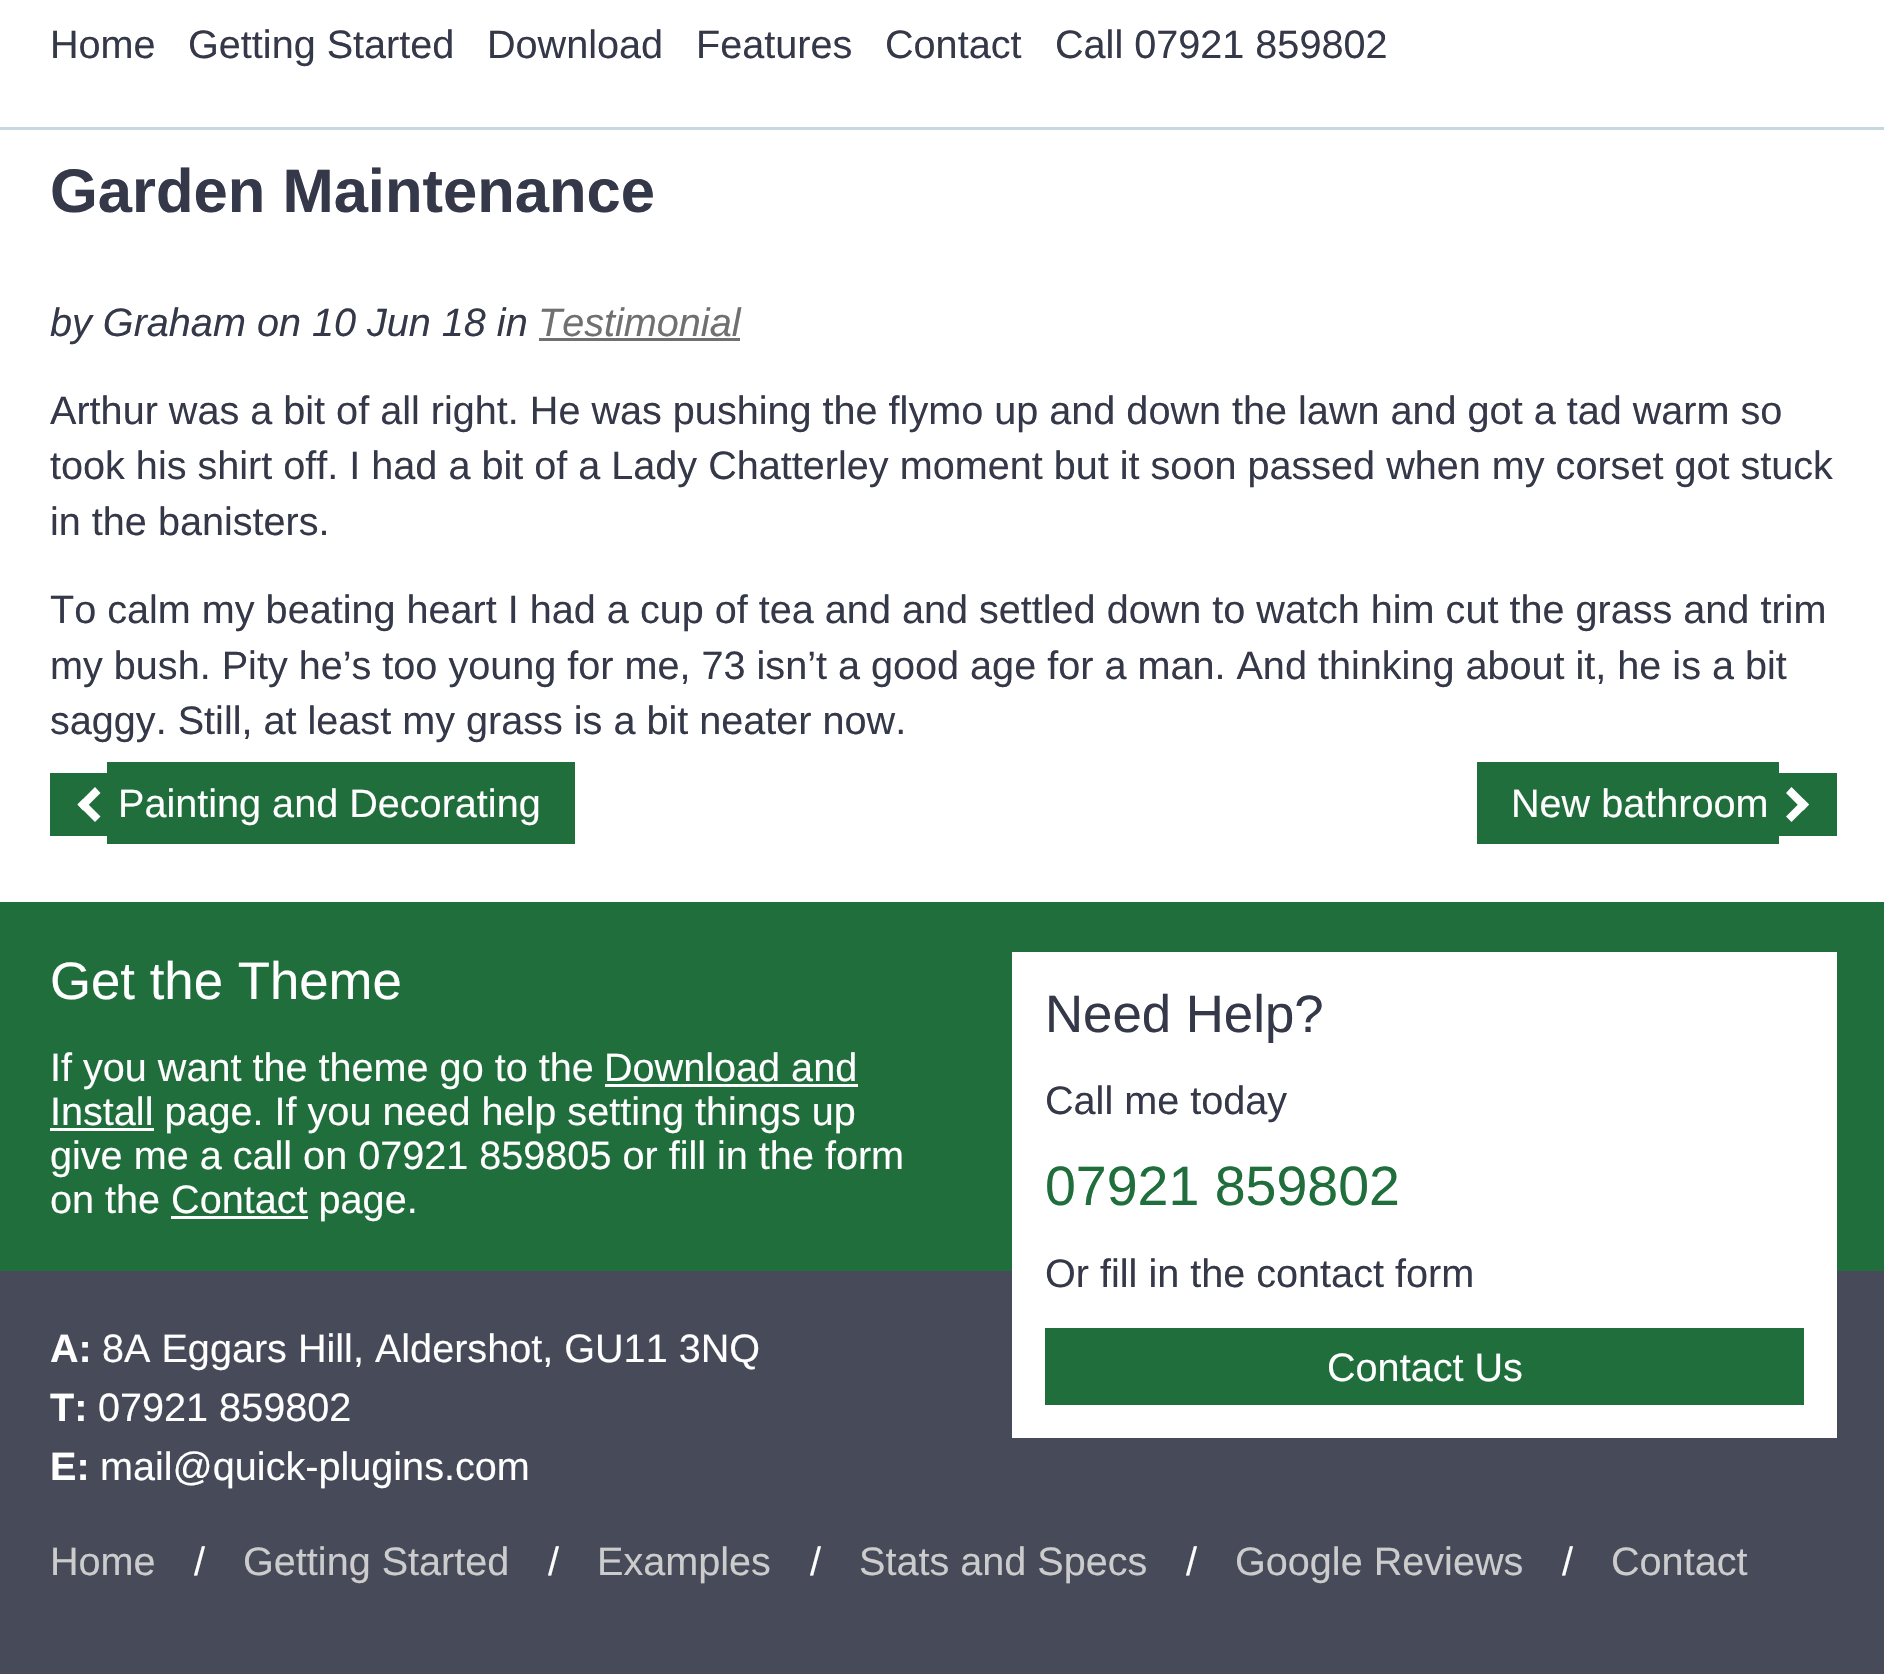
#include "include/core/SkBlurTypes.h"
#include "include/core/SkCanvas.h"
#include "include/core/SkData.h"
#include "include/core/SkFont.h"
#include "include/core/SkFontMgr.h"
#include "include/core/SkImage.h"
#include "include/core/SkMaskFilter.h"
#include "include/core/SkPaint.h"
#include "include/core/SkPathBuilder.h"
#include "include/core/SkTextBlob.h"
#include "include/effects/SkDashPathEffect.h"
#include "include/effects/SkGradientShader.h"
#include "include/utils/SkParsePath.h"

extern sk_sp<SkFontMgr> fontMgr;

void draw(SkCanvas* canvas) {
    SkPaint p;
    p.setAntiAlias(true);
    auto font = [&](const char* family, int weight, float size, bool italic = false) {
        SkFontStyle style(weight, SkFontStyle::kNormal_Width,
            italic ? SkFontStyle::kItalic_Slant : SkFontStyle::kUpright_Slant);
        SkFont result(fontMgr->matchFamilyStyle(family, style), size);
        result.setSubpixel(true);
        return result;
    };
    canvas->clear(0xFFFFFFFF);
    p.setColor(0xFFC7D7E0);
    canvas->drawRect(SkRect::MakeLTRB(0, 127, 1884, 130), p);
    auto font1 = font("Liberation Sans", 400, 39.6f);
    p.setColor(0xFF343848);
    {
        const struct { const char* s; float x, y; } items[] = {
            {"Home", 50, 58},
            {"Getting Started", 188, 58},
            {"Download", 487, 58},
            {"Features", 696, 58},
            {"Contact", 885, 58},
            {"Call 07921 859802", 1055, 58},
        };
        for (auto [s, x, y] : items) {
            canvas->drawString(s, x, y, font1, p);
        }
    }
    auto font2 = font("Liberation Sans", 700, 61.5f);
    canvas->drawString("Garden Maintenance", 50, 212, font2, p);
    auto font3 = font("Liberation Sans", 400, 39.6f, true);
    canvas->drawString("by Graham on 10 Jun 18 in", 50, 336, font3, p);
    p.setColor(0xFF707070);
    canvas->drawString("Testimonial", 538, 336, font3, p);
    canvas->drawRect(SkRect::MakeLTRB(539, 338, 740, 341), p);
    p.setColor(0xFF343848);
    {
        const struct { const char* s; float x, y; } items[] = {
            {"Arthur was a bit of all right. He was pushing the flymo up and down the lawn and got a tad warm so", 50, 424},
            {"took his shirt off. I had a bit of a Lady Chatterley moment but it soon passed when my corset got stuck", 50, 479},
            {"in the banisters.", 50, 535},
            {"To calm my beating heart I had a cup of tea and and settled down to watch him cut the grass and trim", 50, 623},
            {"my bush. Pity he’s too young for me, 73 isn’t a good age for a man. And thinking about it, he is a bit", 50, 679},
            {"saggy. Still, at least my grass is a bit neater now.", 50, 734},
        };
        for (auto [s, x, y] : items) {
            canvas->drawString(s, x, y, font1, p);
        }
    }
    p.setColor(0xFF1F6E3C);
    canvas->drawRect(SkRect::MakeLTRB(50, 773, 107, 836), p);
    canvas->drawRect(SkRect::MakeLTRB(107, 762, 575, 844), p);
    p.setColor(0xFFFFFFFF);
    canvas->drawPath(SkPathBuilder().moveTo(100.5f, 816.5f).lineTo(95, 822).lineTo(77.5f, 804.5f).lineTo(83, 799).close().detach(), p);
    canvas->drawPath(SkPathBuilder().moveTo(100.5f, 793).lineTo(83, 810.5f).lineTo(77.5f, 804.5f).lineTo(95, 787).close().detach(), p);
    canvas->drawString("Painting and Decorating", 118, 817, font1, p);
    p.setColor(0xFF1F6E3C);
    canvas->drawRect(SkRect::MakeLTRB(1477, 762, 1779, 844), p);
    canvas->drawRect(SkRect::MakeLTRB(1779, 773, 1837, 836), p);
    p.setColor(0xFFFFFFFF);
    canvas->drawString("New bathroom", 1511, 817, font1, p);
    canvas->drawPath(SkPathBuilder().moveTo(1786, 793).lineTo(1791.5f, 787).lineTo(1809, 804.5f).lineTo(1803.5f, 810.5f).close().detach(), p);
    canvas->drawPath(SkPathBuilder().moveTo(1786, 816.5f).lineTo(1803.5f, 799).lineTo(1809, 804.5f).lineTo(1791.5f, 822).close().detach(), p);
    p.setColor(0xFF1F6E3C);
    canvas->drawRect(SkRect::MakeLTRB(0, 902, 1884, 1271), p);
    auto font4 = font("Liberation Sans", 400, 52.75f);
    p.setColor(0xFFFFFFFF);
    canvas->drawString("Get the Theme", 50, 999, font4, p);
    canvas->drawString("If you want the theme go to the", 50, 1081, font1, p);
    canvas->drawString("Download and", 604, 1081, font1, p);
    canvas->drawRect(SkRect::MakeLTRB(605, 1084, 858, 1087), p);
    canvas->drawRect(SkRect::MakeLTRB(50, 1128, 154, 1131), p);
    {
        const struct { const char* s; float x, y; } items[] = {
            {"Install page. If you need help setting things up", 50, 1125},
            {"give me a call on 07921 859805 or fill in the form", 50, 1169},
            {"on the Contact page.", 50, 1213},
        };
        for (auto [s, x, y] : items) {
            canvas->drawString(s, x, y, font1, p);
        }
    }
    {
        const struct { float l, t, r, b; SkColor color; } items[] = {
            {171, 1216, 308, 1219, 0xFFFFFFFF},
            {0, 1271, 1884, 1674, 0xFF474B59},
            {1012, 952, 1837, 1438, 0xFFFFFFFF},
        };
        for (auto [l, t, r, b, color] : items) {
            p.setColor(color);
            canvas->drawRect(SkRect::MakeLTRB(l, t, r, b), p);
        }
    }
    p.setColor(0xFF343848);
    canvas->drawString("Need Help?", 1045, 1032, font4, p);
    canvas->drawString("Call me today", 1045, 1114, font1, p);
    auto font5 = font("Liberation Sans", 400, 55.5f);
    p.setColor(0xFF1F6E3C);
    canvas->drawString("07921 859802", 1045, 1205, font5, p);
    p.setColor(0xFF343848);
    canvas->drawString("Or fill in the contact form", 1045, 1287, font1, p);
    p.setColor(0xFF1F6E3C);
    canvas->drawRect(SkRect::MakeLTRB(1045, 1328, 1804, 1405), p);
    p.setColor(0xFFFFFFFF);
    canvas->drawString("Contact Us", 1327, 1381, font1, p);
    auto font6 = font("Liberation Sans", 700, 39.6f);
    canvas->drawString("A:", 50, 1362, font6, p);
    canvas->drawString("8A Eggars Hill, Aldershot, GU11 3NQ", 102, 1362, font1, p);
    canvas->drawString("T:", 50, 1421, font6, p);
    canvas->drawString("07921 859802", 98, 1421, font1, p);
    canvas->drawString("E:", 50, 1480, font6, p);
    canvas->drawString("mail@quick-plugins.com", 100, 1480, font1, p);
    p.setColor(0xFFCCCCCC);
    canvas->drawString("Home", 50, 1575, font1, p);
    p.setColor(0xFFFFFFFF);
    canvas->drawString("/", 194, 1575, font1, p);
    p.setColor(0xFFCCCCCC);
    canvas->drawString("Getting Started", 243, 1575, font1, p);
    p.setColor(0xFFFFFFFF);
    canvas->drawString("/", 548, 1575, font1, p);
    p.setColor(0xFFCCCCCC);
    canvas->drawString("Examples", 597, 1575, font1, p);
    p.setColor(0xFFFFFFFF);
    canvas->drawString("/", 810, 1575, font1, p);
    p.setColor(0xFFCCCCCC);
    canvas->drawString("Stats and Specs", 859, 1575, font1, p);
    p.setColor(0xFFFFFFFF);
    canvas->drawString("/", 1186, 1575, font1, p);
    p.setColor(0xFFCCCCCC);
    canvas->drawString("Google Reviews", 1235, 1575, font1, p);
    p.setColor(0xFFFFFFFF);
    canvas->drawString("/", 1562, 1575, font1, p);
    p.setColor(0xFFCCCCCC);
    canvas->drawString("Contact", 1611, 1575, font1, p);
}
